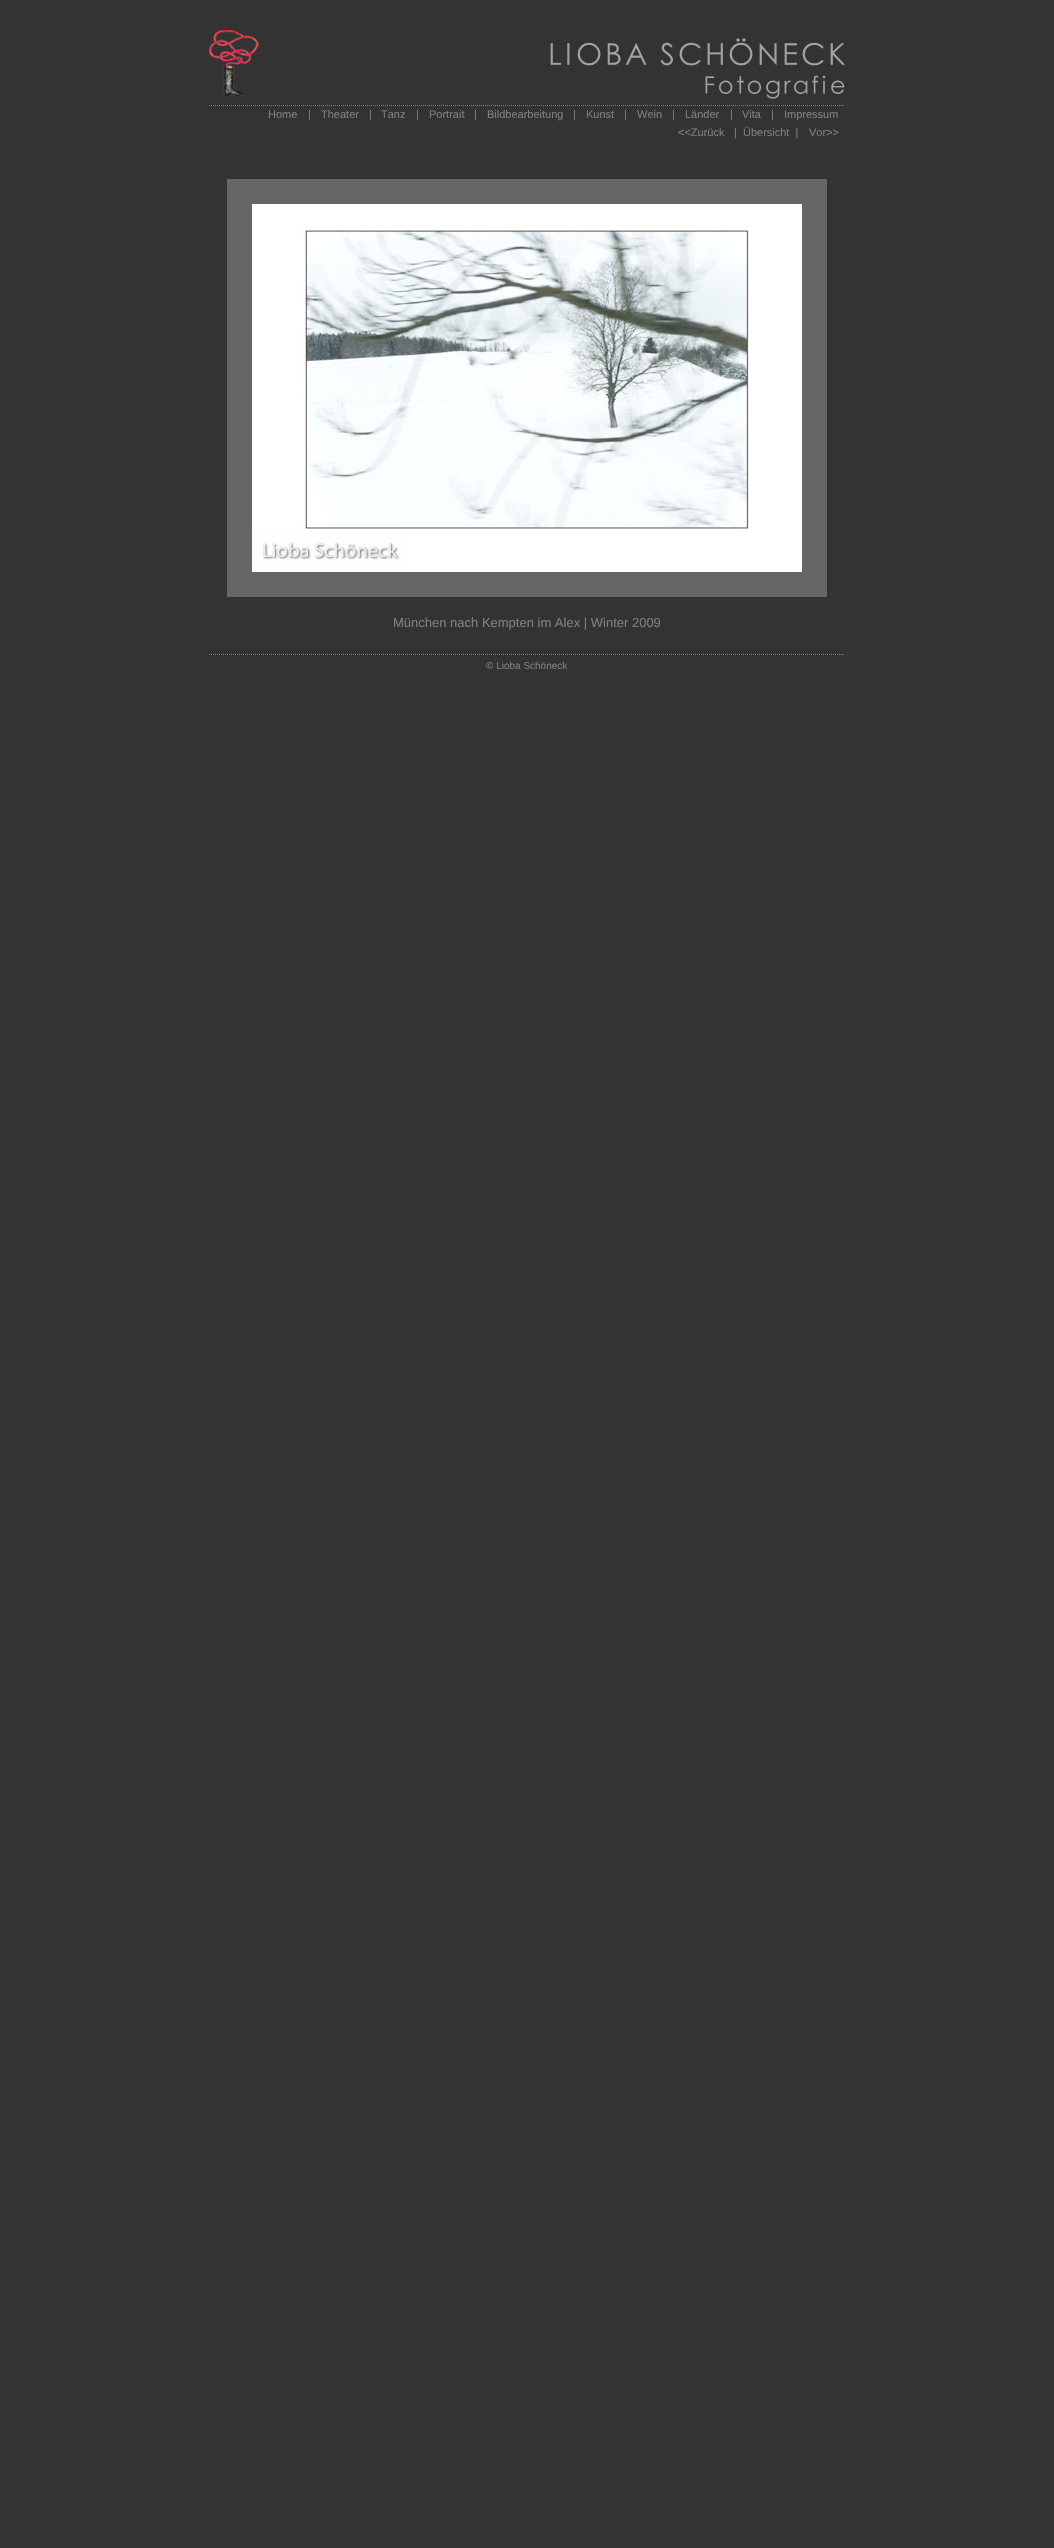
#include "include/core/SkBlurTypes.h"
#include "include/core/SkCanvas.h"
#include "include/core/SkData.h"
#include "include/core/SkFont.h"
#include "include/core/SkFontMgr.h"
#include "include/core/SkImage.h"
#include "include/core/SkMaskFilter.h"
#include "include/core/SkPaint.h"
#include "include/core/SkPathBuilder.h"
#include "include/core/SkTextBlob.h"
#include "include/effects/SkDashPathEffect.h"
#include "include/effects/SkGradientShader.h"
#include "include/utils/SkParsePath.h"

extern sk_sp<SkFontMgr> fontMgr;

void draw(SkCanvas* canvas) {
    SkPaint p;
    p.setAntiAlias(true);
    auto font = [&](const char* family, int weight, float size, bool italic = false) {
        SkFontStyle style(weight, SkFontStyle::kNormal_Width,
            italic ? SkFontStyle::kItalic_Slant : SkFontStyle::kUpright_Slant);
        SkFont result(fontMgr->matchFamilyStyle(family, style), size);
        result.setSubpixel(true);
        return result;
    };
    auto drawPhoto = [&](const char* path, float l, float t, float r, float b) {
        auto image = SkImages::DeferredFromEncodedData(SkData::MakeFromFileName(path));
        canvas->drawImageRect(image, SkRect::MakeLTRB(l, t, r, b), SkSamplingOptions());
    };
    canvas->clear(0xFF333333);
    drawPhoto("media/1.png", 209, 30, 845, 99);
    p.setStyle(SkPaint::kStroke_Style);
    p.setStrokeWidth(1);
    p.setColor(0xFF7F7F7F);
    p.setPathEffect(SkDashPathEffect::Make({{1, 1}}, 0));
    canvas->drawPath(SkPathBuilder().moveTo(209, 105.5f).lineTo(845, 105.5f).detach(), p);
    p.setPathEffect(nullptr);
    auto font1 = font("Liberation Sans", 400, 11);
    p.setStyle(SkPaint::kFill_Style);
    {
        const struct { const char* s; float x, y; } items[] = {
            {"Home", 268, 118},
            {"|", 308, 118},
            {"Theater", 321, 118},
            {"|", 369, 118},
            {"Tanz", 381, 118},
            {"|", 416, 118},
            {"Portrait", 429, 118},
            {"|", 474, 118},
            {"Bildbearbeitung", 487, 118},
            {"|", 573, 118},
            {"Kunst", 586, 118},
            {"|", 624, 118},
            {"Wein", 637, 118},
            {"|", 672, 118},
            {"Länder", 685, 118},
            {"|", 730, 118},
            {"Vita", 742, 118},
            {"|", 771, 118},
            {"Impressum", 784, 118},
            {"<<Zurück", 678, 136},
            {"|  Übersicht  |", 734, 136},
            {"Vor>>", 809, 136},
        };
        for (auto [s, x, y] : items) {
            canvas->drawString(s, x, y, font1, p);
        }
    }
    p.setColor(0xFF666666);
    canvas->drawRect(SkRect::MakeLTRB(227, 179, 827, 597), p);
    drawPhoto("media/2.png", 252, 204, 802, 572);
    auto font2 = font("Liberation Sans", 400, 13);
    p.setColor(0xFF7F7F7F);
    canvas->drawString("München nach Kempten im Alex | Winter 2009", 393, 627, font2, p);
    p.setStyle(SkPaint::kStroke_Style);
    p.setPathEffect(SkDashPathEffect::Make({{1, 1}}, 0));
    canvas->drawPath(SkPathBuilder().moveTo(209, 654.5f).lineTo(845, 654.5f).detach(), p);
    p.setPathEffect(nullptr);
    auto font3 = font("Liberation Sans", 400, 10);
    p.setStyle(SkPaint::kFill_Style);
    canvas->drawString("© Lioba Schöneck", 486, 669, font3, p);
}
